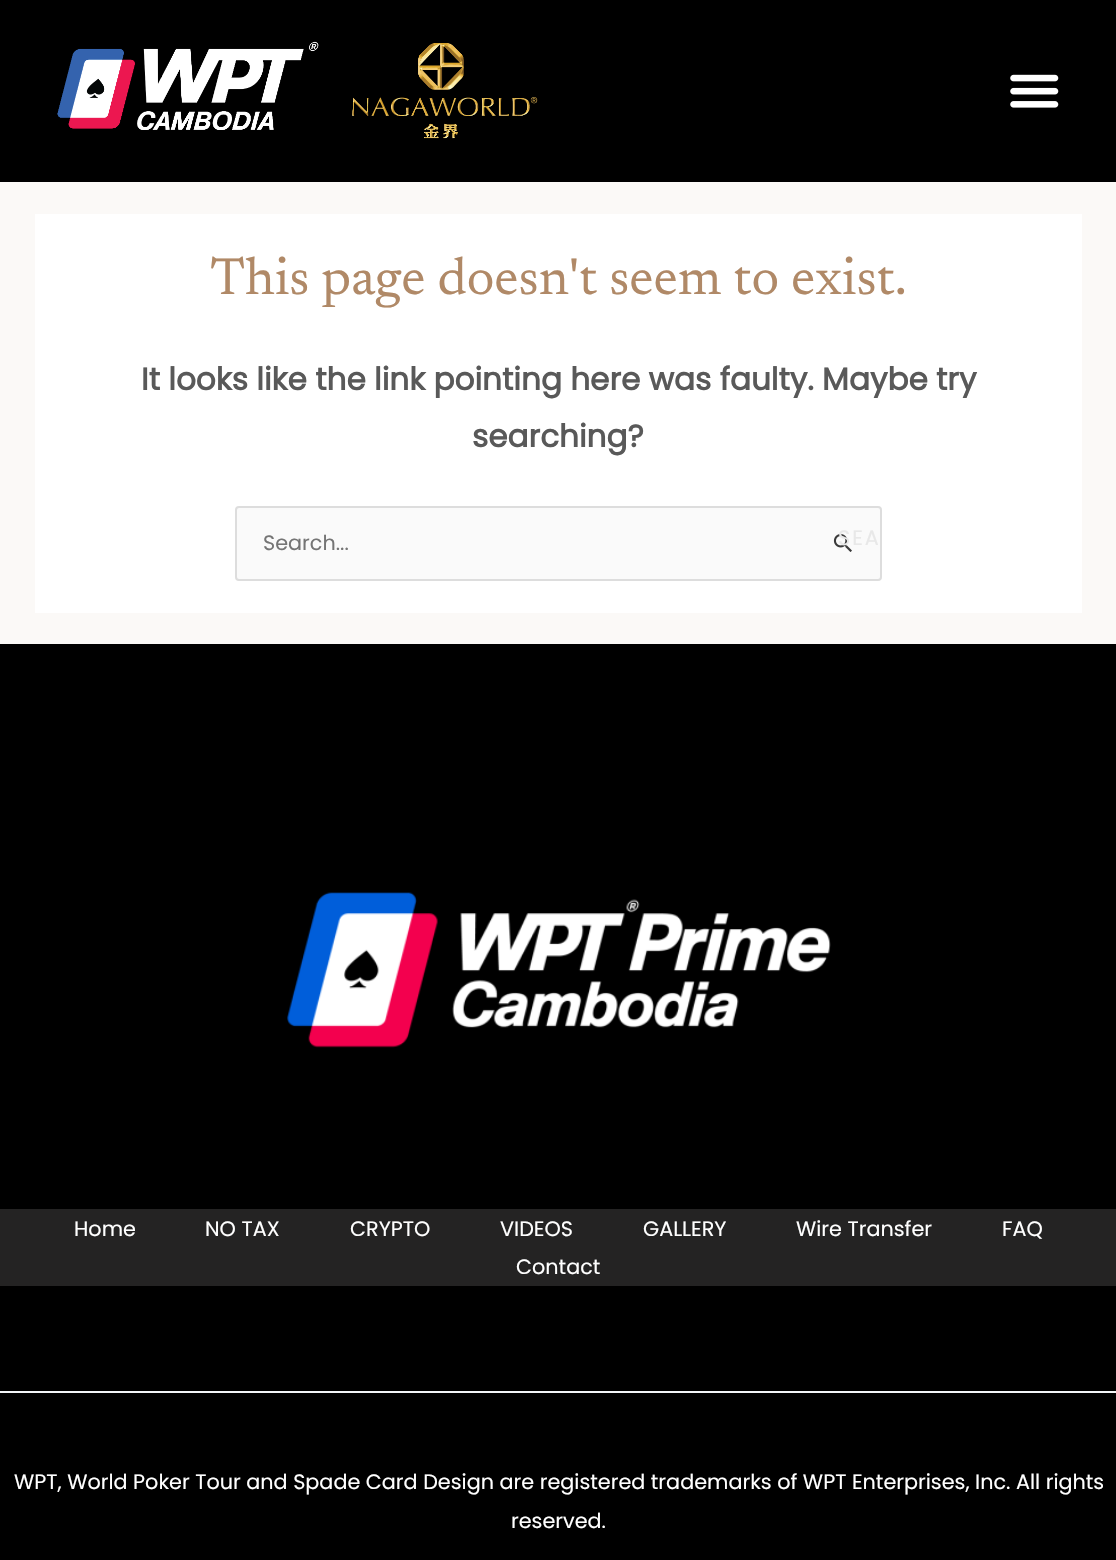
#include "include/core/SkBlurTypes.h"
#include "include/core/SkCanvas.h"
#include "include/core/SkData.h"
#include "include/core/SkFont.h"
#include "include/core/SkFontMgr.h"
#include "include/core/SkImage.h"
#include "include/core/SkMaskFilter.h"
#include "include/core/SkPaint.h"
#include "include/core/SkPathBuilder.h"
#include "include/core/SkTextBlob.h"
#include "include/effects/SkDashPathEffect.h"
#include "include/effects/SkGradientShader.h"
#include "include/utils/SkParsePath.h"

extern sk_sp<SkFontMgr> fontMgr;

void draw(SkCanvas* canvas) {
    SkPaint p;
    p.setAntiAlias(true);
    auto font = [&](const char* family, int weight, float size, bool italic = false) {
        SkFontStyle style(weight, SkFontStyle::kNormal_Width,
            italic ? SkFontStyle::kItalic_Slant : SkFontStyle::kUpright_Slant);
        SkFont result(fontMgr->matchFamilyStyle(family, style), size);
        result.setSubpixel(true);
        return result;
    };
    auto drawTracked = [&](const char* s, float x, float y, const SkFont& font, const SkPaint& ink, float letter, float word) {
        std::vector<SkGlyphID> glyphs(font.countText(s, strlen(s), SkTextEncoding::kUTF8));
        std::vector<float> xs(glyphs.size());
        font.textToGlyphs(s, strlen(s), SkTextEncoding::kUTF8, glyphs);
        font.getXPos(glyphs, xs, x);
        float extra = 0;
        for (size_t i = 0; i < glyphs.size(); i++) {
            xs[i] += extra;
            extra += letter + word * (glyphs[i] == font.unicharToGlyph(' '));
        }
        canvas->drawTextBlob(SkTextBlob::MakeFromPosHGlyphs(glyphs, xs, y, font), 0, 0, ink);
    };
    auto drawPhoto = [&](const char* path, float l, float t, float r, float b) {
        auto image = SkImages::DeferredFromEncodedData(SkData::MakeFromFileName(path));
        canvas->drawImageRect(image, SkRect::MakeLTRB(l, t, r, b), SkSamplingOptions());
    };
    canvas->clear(0xFFFBF9F7);
    p.setColor(0xFF000000);
    canvas->drawRect(SkRect::MakeLTRB(0, 0, 1116, 182), p);
    drawPhoto("media/1.png", 57, 41, 538, 139);
    drawPhoto("media/2.png", 1010, 74, 1059, 108);
    p.setColor(0xFFFFFFFF);
    canvas->drawRect(SkRect::MakeLTRB(35, 214, 1082, 613), p);
    auto font1 = font("Newsreader", 400, 52.5f);
    p.setColor(0xFFB08967);
    canvas->drawString("This page doesn't seem to exist.", 210, 294, font1, p);
    auto font2 = font("Poppins", 700, 31.1f);
    p.setColor(0xFF595959);
    canvas->drawString("It looks like the link pointing here was faulty. Maybe try", 141, 390, font2, p);
    canvas->drawString("searching?", 472, 447, font2, p);
    p.setColor(0xFFFAFAFA);
    canvas->drawRoundRect(SkRect::MakeLTRB(236, 507, 881, 580), 3, 3, p);
    p.setStyle(SkPaint::kStroke_Style);
    p.setStrokeWidth(2);
    p.setColor(0xFFDDDDDD);
    canvas->drawRoundRect(SkRect::MakeLTRB(236, 507, 881, 580), 3, 3, p);
    auto font3 = font("Poppins", 400, 20.75f);
    p.setStyle(SkPaint::kFill_Style);
    p.setColor(0xFF757575);
    canvas->drawString("Search...", 263, 550, font3, p);
    drawPhoto("media/3.png", 833, 534, 852, 552);
    p.setColor(0xFFE8E8E8);
    drawTracked("SEA", 838, 545, font3, p, 2, 0);
    p.setColor(0xFF000000);
    canvas->drawRect(SkRect::MakeLTRB(0, 644, 1116, 1560), p);
    drawPhoto("media/4.png", 287, 892, 831, 1048);
    p.setColor(0xFF242323);
    canvas->drawRect(SkRect::MakeLTRB(0, 1209, 1116, 1286), p);
    p.setColor(0xFFFFFFFF);
    {
        const struct { const char* s; float x, y; } items[] = {
            {"Home", 74, 1236},
            {"NO TAX", 205, 1236},
            {"CRYPTO", 350, 1236},
            {"VIDEOS", 500, 1236},
            {"GALLERY", 643, 1236},
            {"Wire Transfer", 796, 1236},
            {"FAQ", 1002, 1236},
            {"Contact", 516, 1274},
        };
        for (auto [s, x, y] : items) {
            canvas->drawString(s, x, y, font3, p);
        }
    }
    p.setColor(0xFFF2F5F7);
    canvas->drawRect(SkRect::MakeLTRB(0, 1391, 1116, 1393), p);
    p.setColor(0xFFFFFFFF);
    canvas->drawString("WPT, World Poker Tour and Spade Card Design are registered trademarks of WPT Enterprises, Inc. All rights", 14, 1489, font3, p);
    canvas->drawString("reserved.", 511, 1528, font3, p);
}
